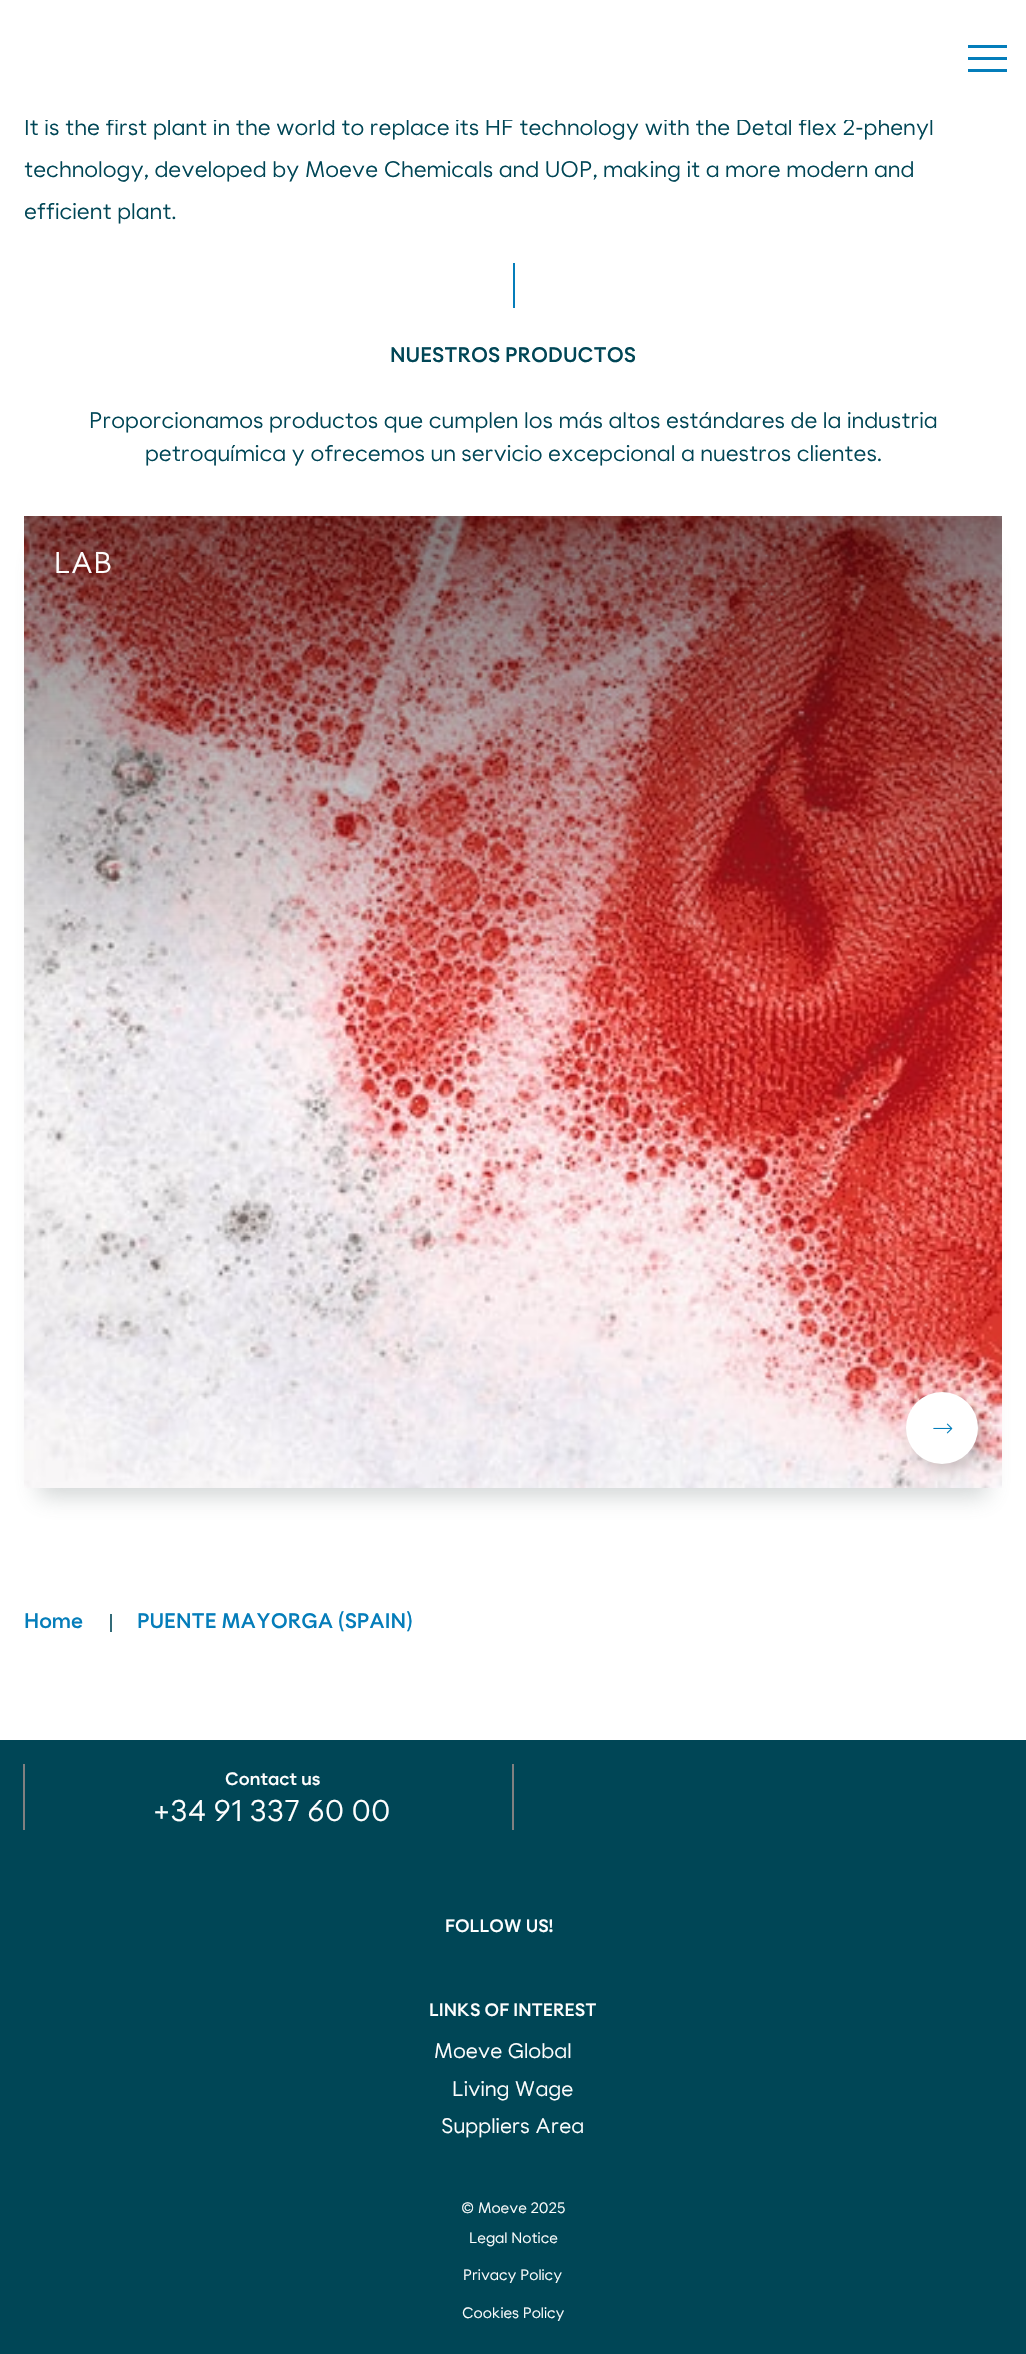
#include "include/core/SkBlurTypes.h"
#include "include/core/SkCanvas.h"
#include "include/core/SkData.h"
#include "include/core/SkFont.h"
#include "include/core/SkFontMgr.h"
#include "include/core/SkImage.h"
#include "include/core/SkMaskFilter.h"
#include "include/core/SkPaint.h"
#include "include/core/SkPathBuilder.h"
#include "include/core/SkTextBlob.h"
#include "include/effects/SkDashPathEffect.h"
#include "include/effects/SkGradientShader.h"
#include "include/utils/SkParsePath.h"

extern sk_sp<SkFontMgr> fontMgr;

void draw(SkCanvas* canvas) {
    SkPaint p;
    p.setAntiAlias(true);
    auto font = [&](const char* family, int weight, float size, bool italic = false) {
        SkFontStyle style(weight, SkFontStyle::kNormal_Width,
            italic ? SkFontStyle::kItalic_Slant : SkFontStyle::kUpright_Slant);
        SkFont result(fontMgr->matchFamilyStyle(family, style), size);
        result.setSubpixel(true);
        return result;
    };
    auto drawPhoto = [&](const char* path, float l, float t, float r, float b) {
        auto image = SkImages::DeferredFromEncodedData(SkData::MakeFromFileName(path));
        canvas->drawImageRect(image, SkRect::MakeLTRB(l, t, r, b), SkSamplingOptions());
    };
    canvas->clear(0xFFFFFFFF);
    auto font1 = font("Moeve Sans", 300, 22.5f);
    p.setColor(0xFF004656);
    canvas->drawString("It is the first plant in the world to replace its HF technology with the Detal flex 2-phenyl", 24, 135, font1, p);
    {
        const struct { float l, t, r, b; SkColor color; } items[] = {
            {25, 119, 933, 120, 0xFFFFFFFF},
            {968, 57, 1007, 60, 0xFF047DBA},
            {968, 45, 1007, 48, 0xFF047DBA},
            {968, 69, 1007, 72, 0xFF047DBA},
        };
        for (auto [l, t, r, b, color] : items) {
            p.setColor(color);
            canvas->drawRect(SkRect::MakeLTRB(l, t, r, b), p);
        }
    }
    p.setColor(0xFF004656);
    canvas->drawString("technology, developed by Moeve Chemicals and UOP, making it a more modern and", 24, 177, font1, p);
    canvas->drawString("efficient plant.", 24, 219, font1, p);
    p.setColor(0xFF047DBA);
    canvas->drawRect(SkRect::MakeLTRB(513, 263, 515, 308), p);
    auto font2 = font("Moeve Sans", 400, 21);
    p.setColor(0xFF004656);
    canvas->drawString("NUESTROS PRODUCTOS", 390, 362, font2, p);
    canvas->drawString("Proporcionamos productos que cumplen los más altos estándares de la industria", 89, 428, font1, p);
    canvas->drawString("petroquímica y ofrecemos un servicio excepcional a nuestros clientes.", 145, 461, font1, p);
    p.setColor(0x4D646F70);
    p.setMaskFilter(SkMaskFilter::MakeBlur(kNormal_SkBlurStyle, 11));
    canvas->drawRect(SkRect::MakeLTRB(39, 554, 987, 1496), p);
    p.setMaskFilter(nullptr);
    drawPhoto("media/1.png", 24, 516, 1002, 1488);
    auto font3 = font("Moeve Sans", 300, 30);
    p.setColor(0xFFFFFFFF);
    canvas->drawString("LAB", 54, 573, font3, p);
    p.setColor(0x29000000);
    p.setMaskFilter(SkMaskFilter::MakeBlur(kNormal_SkBlurStyle, 6));
    canvas->drawRoundRect(SkRect::MakeLTRB(912, 1400, 984, 1472), 36, 36, p);
    p.setMaskFilter(nullptr);
    p.setColor(0xFFFFFFFF);
    canvas->drawCircle(942, 1428, 36, p);
    drawPhoto("media/2.png", 933, 1423, 953, 1434);
    p.setColor(0xFF047DBA);
    canvas->drawString("Home", 24, 1628, font2, p);
    p.setColor(0xFF336B78);
    canvas->drawRect(SkRect::MakeLTRB(110, 1614, 112, 1632), p);
    p.setColor(0xFF047DBA);
    canvas->drawString("PUENTE MAYORGA (SPAIN)", 137, 1628, font2, p);
    {
        const struct { float l, t, r, b; SkColor color; } items[] = {
            {0, 1740, 1026, 2354, 0xFF004656},
            {512, 1764, 514, 1830, 0xFF808080},
            {23, 1764, 25, 1830, 0xFF808080},
        };
        for (auto [l, t, r, b, color] : items) {
            p.setColor(color);
            canvas->drawRect(SkRect::MakeLTRB(l, t, r, b), p);
        }
    }
    auto font4 = font("Moeve Sans", 400, 18);
    p.setColor(0xFFFFFFFF);
    canvas->drawString("Contact us", 225, 1785, font4, p);
    canvas->drawString("+34 91 337 60 00", 153, 1821, font3, p);
    canvas->drawString("FOLLOW US!", 445, 1932, font4, p);
    canvas->drawString("LINKS OF INTEREST", 429, 2016, font4, p);
    auto font5 = font("Moeve Sans", 300, 21);
    {
        const struct { const char* s; float x, y; } items[] = {
            {"Moeve Global", 434, 2058},
            {"Living Wage", 452, 2096},
            {"Suppliers Area", 441, 2133},
        };
        for (auto [s, x, y] : items) {
            canvas->drawString(s, x, y, font5, p);
        }
    }
    auto font6 = font("Moeve Sans", 300, 15);
    {
        const struct { const char* s; float x, y; } items[] = {
            {"© Moeve 2025", 461, 2213},
            {"Legal Notice", 469, 2243},
            {"Privacy Policy", 463, 2280},
            {"Cookies Policy", 462, 2318},
        };
        for (auto [s, x, y] : items) {
            canvas->drawString(s, x, y, font6, p);
        }
    }
}
